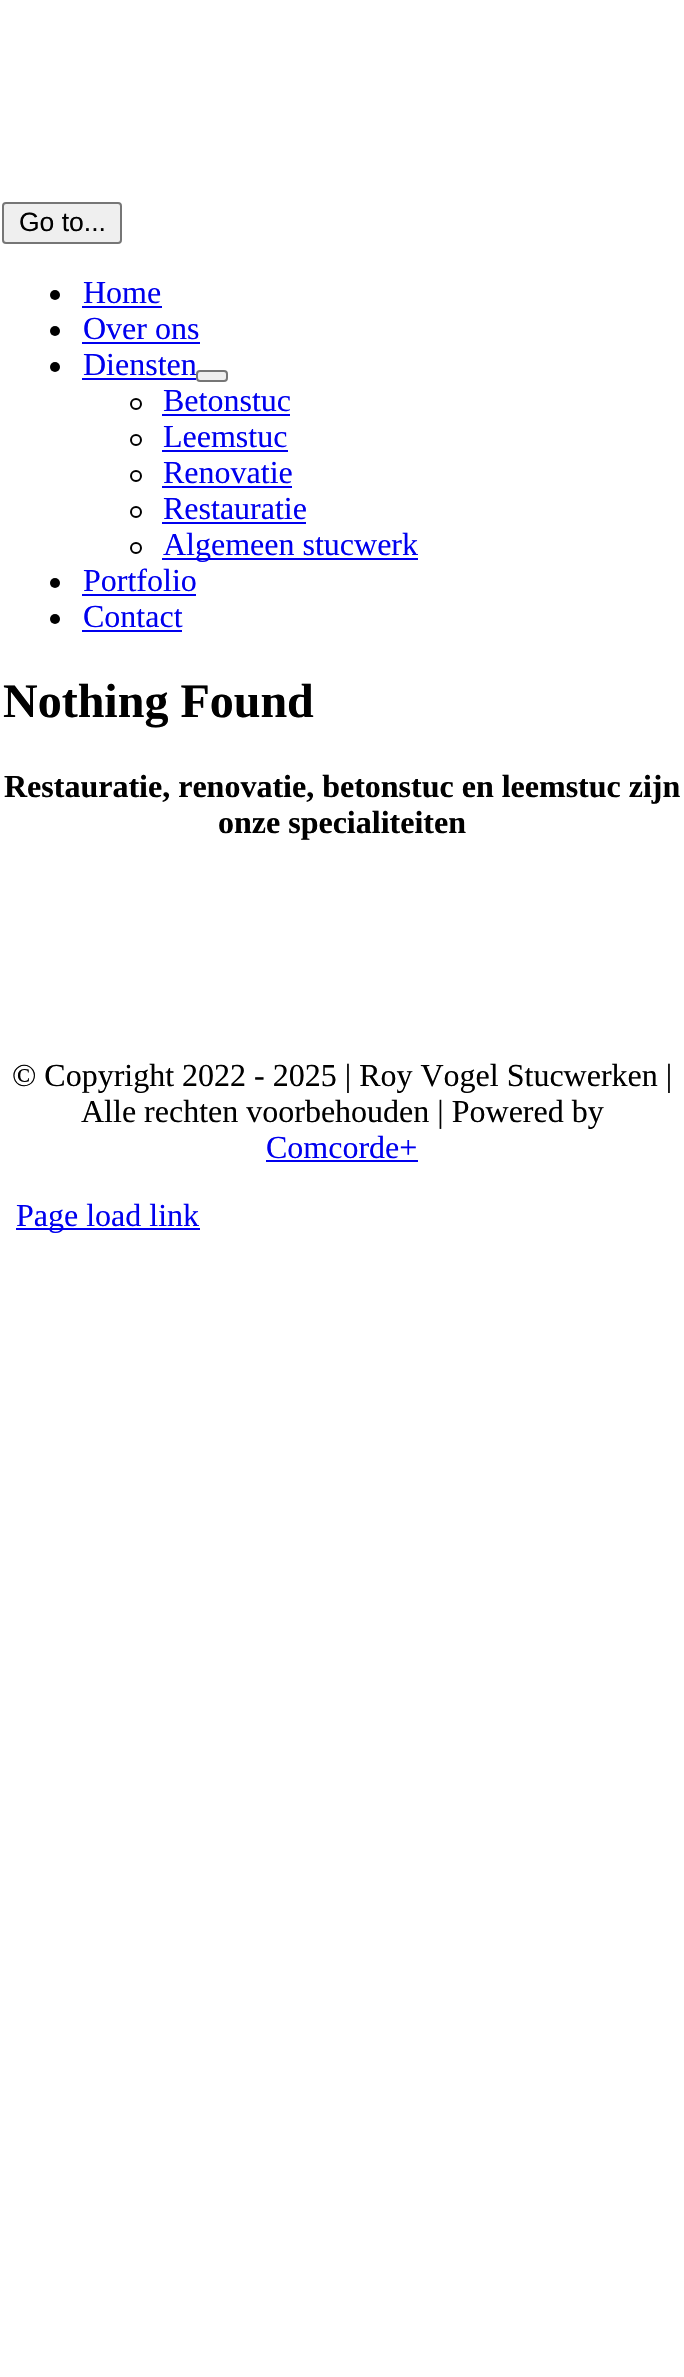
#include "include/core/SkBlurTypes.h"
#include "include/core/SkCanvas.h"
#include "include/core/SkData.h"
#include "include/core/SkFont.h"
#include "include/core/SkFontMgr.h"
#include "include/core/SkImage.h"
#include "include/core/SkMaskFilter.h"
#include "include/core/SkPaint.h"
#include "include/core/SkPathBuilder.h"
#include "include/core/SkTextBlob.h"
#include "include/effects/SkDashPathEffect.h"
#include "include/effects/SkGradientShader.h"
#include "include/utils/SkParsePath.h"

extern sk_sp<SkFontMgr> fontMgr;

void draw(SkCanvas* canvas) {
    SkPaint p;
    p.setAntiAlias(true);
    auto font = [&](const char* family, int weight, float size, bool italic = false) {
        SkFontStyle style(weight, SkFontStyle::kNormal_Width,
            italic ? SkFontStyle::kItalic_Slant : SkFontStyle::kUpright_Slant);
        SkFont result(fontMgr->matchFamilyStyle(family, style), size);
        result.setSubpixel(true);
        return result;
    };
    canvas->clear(0xFFFFFFFF);
    p.setColor(0xFFEFEFEF);
    canvas->drawRoundRect(SkRect::MakeLTRB(3, 203, 121, 243), 3, 3, p);
    p.setStyle(SkPaint::kStroke_Style);
    p.setStrokeWidth(2);
    p.setColor(0xFF767676);
    canvas->drawRoundRect(SkRect::MakeLTRB(3, 203, 121, 243), 3, 3, p);
    auto font1 = font("Liberation Sans", 400, 26.5f);
    p.setStyle(SkPaint::kFill_Style);
    p.setColor(0xFF000000);
    canvas->drawString("Go to...", 19, 231, font1, p);
    canvas->drawCircle(55, 295, 5, p);
    auto font2 = font("Liberation Serif", 400, 32);
    p.setColor(0xFF0000EE);
    canvas->drawString("Home", 83, 303, font2, p);
    canvas->drawRect(SkRect::MakeLTRB(82, 306, 162, 308), p);
    p.setColor(0xFF000000);
    canvas->drawCircle(55, 331, 5, p);
    p.setColor(0xFF0000EE);
    canvas->drawString("Over ons", 83, 339, font2, p);
    canvas->drawRect(SkRect::MakeLTRB(82, 342, 200, 344), p);
    p.setColor(0xFF000000);
    canvas->drawCircle(55, 367, 5, p);
    p.setColor(0xFF0000EE);
    canvas->drawString("Diensten", 83, 375, font2, p);
    canvas->drawRect(SkRect::MakeLTRB(82, 378, 196, 380), p);
    p.setColor(0xFFEFEFEF);
    canvas->drawRoundRect(SkRect::MakeLTRB(197, 371, 227, 381), 3, 3, p);
    p.setStyle(SkPaint::kStroke_Style);
    p.setColor(0xFF767676);
    canvas->drawRoundRect(SkRect::MakeLTRB(197, 371, 227, 381), 3, 3, p);
    p.setColor(0xFF000000);
    canvas->drawCircle(136, 404, 5, p);
    p.setStyle(SkPaint::kFill_Style);
    p.setColor(0xFF0000EE);
    canvas->drawString("Betonstuc", 163, 411, font2, p);
    canvas->drawRect(SkRect::MakeLTRB(162, 414, 290, 416), p);
    p.setStyle(SkPaint::kStroke_Style);
    p.setColor(0xFF000000);
    canvas->drawCircle(136, 440, 5, p);
    p.setStyle(SkPaint::kFill_Style);
    p.setColor(0xFF0000EE);
    canvas->drawString("Leemstuc", 163, 447, font2, p);
    canvas->drawRect(SkRect::MakeLTRB(162, 450, 288, 452), p);
    p.setStyle(SkPaint::kStroke_Style);
    p.setColor(0xFF000000);
    canvas->drawCircle(136, 476, 5, p);
    p.setStyle(SkPaint::kFill_Style);
    p.setColor(0xFF0000EE);
    canvas->drawString("Renovatie", 163, 483, font2, p);
    canvas->drawRect(SkRect::MakeLTRB(162, 486, 292, 488), p);
    p.setStyle(SkPaint::kStroke_Style);
    p.setColor(0xFF000000);
    canvas->drawCircle(136, 512, 5, p);
    p.setStyle(SkPaint::kFill_Style);
    p.setColor(0xFF0000EE);
    canvas->drawString("Restauratie", 163, 519, font2, p);
    canvas->drawRect(SkRect::MakeLTRB(162, 522, 306, 524), p);
    p.setStyle(SkPaint::kStroke_Style);
    p.setColor(0xFF000000);
    canvas->drawCircle(136, 548, 5, p);
    p.setStyle(SkPaint::kFill_Style);
    p.setColor(0xFF0000EE);
    canvas->drawRect(SkRect::MakeLTRB(162, 558, 418, 560), p);
    canvas->drawString("Algemeen stucwerk", 163, 555, font2, p);
    p.setColor(0xFF000000);
    canvas->drawCircle(55, 583, 5, p);
    p.setColor(0xFF0000EE);
    canvas->drawString("Portfolio", 83, 591, font2, p);
    canvas->drawRect(SkRect::MakeLTRB(82, 594, 196, 596), p);
    p.setColor(0xFF000000);
    canvas->drawCircle(55, 619, 5, p);
    p.setColor(0xFF0000EE);
    canvas->drawString("Contact", 83, 627, font2, p);
    canvas->drawRect(SkRect::MakeLTRB(82, 630, 182, 632), p);
    auto font3 = font("Liberation Serif", 700, 48);
    p.setColor(0xFF000000);
    canvas->drawString("Nothing Found", 3, 717, font3, p);
    auto font4 = font("Liberation Serif", 700, 32);
    canvas->drawString("Restauratie, renovatie, betonstuc en leemstuc zijn", 4, 797, font4, p);
    canvas->drawString("onze specialiteiten", 218, 833, font4, p);
    canvas->drawString("© Copyright 2022 - 2025 | Roy Vogel Stucwerken |", 12, 1086, font2, p);
    canvas->drawString("Alle rechten voorbehouden | Powered by", 81, 1122, font2, p);
    p.setColor(0xFF0000EE);
    canvas->drawString("Comcorde+", 266, 1158, font2, p);
    canvas->drawRect(SkRect::MakeLTRB(266, 1160, 418, 1162), p);
    canvas->drawRect(SkRect::MakeLTRB(16, 1228, 200, 1230), p);
    canvas->drawString("Page load link", 16, 1226, font2, p);
}
